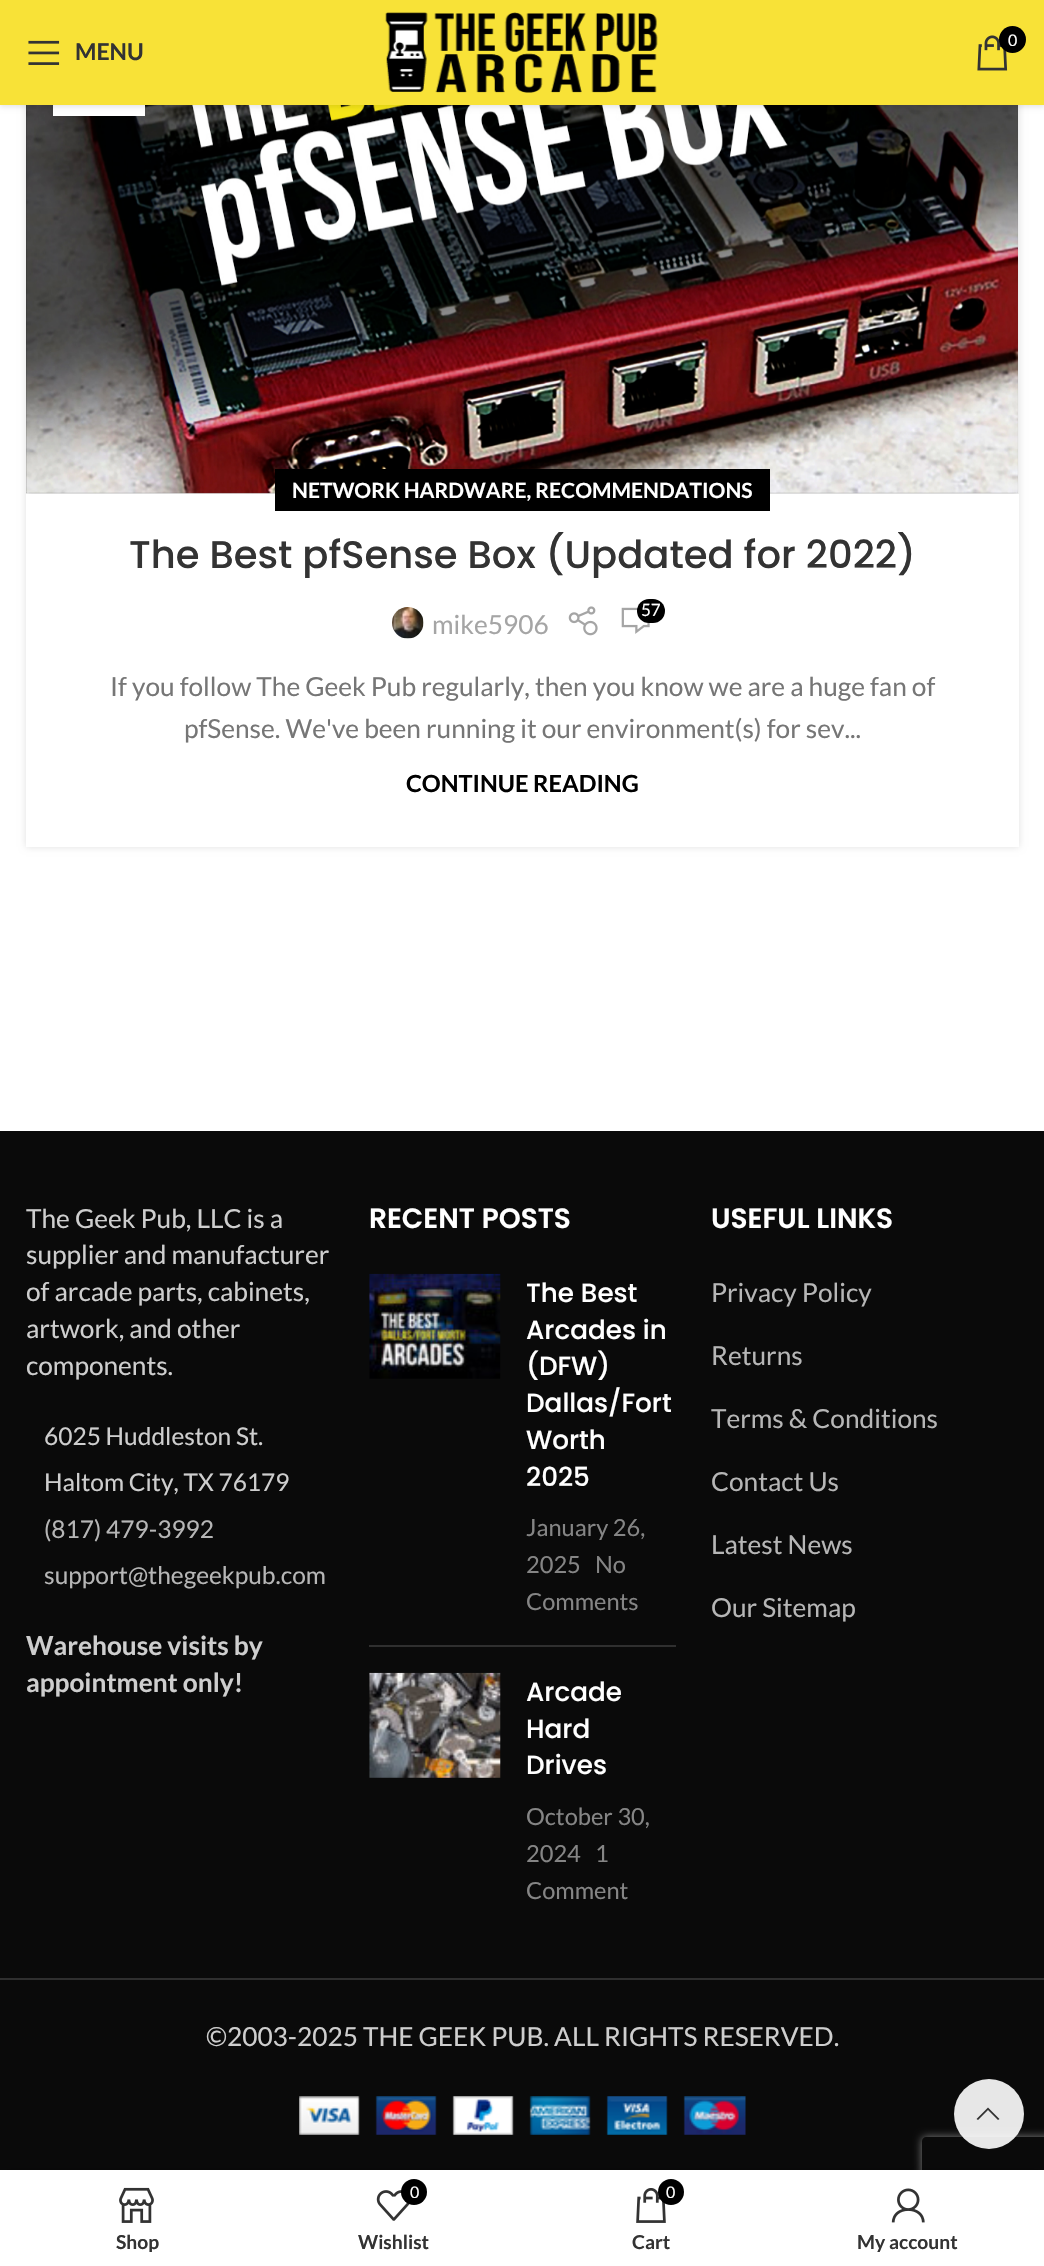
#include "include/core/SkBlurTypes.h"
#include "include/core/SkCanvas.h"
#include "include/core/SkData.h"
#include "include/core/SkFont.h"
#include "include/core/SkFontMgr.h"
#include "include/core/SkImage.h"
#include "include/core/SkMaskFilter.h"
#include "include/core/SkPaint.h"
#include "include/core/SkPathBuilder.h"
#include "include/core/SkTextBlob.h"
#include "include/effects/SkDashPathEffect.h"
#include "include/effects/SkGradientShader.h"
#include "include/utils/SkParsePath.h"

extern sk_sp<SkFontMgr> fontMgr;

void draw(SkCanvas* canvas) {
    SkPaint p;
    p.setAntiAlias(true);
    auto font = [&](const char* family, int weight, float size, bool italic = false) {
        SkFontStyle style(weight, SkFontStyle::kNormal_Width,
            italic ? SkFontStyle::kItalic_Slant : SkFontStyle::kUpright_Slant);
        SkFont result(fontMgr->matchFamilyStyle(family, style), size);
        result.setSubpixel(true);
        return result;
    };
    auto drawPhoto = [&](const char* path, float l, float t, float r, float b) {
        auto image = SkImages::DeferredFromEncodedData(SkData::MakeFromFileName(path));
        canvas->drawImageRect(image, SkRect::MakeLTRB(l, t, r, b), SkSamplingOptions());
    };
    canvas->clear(0xFFFFFFFF);
    p.setColor(0x1F000000);
    p.setMaskFilter(SkMaskFilter::MakeBlur(kNormal_SkBlurStyle, 3.5f));
    canvas->drawRect(SkRect::MakeLTRB(26, -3, 1019, 847), p);
    p.setMaskFilter(nullptr);
    drawPhoto("media/4.png", 26, 105, 1018, 494);
    p.setColor(0x1A000000);
    p.setMaskFilter(SkMaskFilter::MakeBlur(kNormal_SkBlurStyle, 8));
    canvas->drawRect(SkRect::MakeLTRB(53, 23, 145, 116), p);
    p.setMaskFilter(nullptr);
    p.setColor(0xFFFFFFFF);
    canvas->drawRect(SkRect::MakeLTRB(53, 105, 145, 116), p);
    p.setColor(0x1A000000);
    p.setMaskFilter(SkMaskFilter::MakeBlur(kNormal_SkBlurStyle, 2.5f));
    canvas->drawRect(SkRect::MakeLTRB(0, 2, 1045, 107), p);
    p.setMaskFilter(nullptr);
    p.setColor(0xFFF8E237);
    canvas->drawRect(SkRect::MakeLTRB(0, 0, 1044, 105), p);
    drawPhoto("media/1.png", 385, 12, 658, 93);
    drawPhoto("media/2.png", 977, 35, 1008, 71);
    p.setColor(0xFF000000);
    canvas->drawCircle(1012.5f, 39.5f, 13.5f, p);
    auto font1 = font("Lato", 400, 16);
    p.setColor(0xFFFFFFFF);
    canvas->drawString("0", 1008, 46, font1, p);
    drawPhoto("media/3.png", 28, 40, 60, 65);
    auto font2 = font("Lato", 700, 23);
    p.setColor(0xFF333333);
    canvas->drawString("MENU", 75, 60, font2, p);
    p.setColor(0xFFFFFFFF);
    canvas->drawRect(SkRect::MakeLTRB(26, 494, 1019, 847), p);
    p.setColor(0xFF000000);
    canvas->drawRect(SkRect::MakeLTRB(275, 469, 770, 511), p);
    auto font3 = font("Lato", 700, 21);
    p.setColor(0xFFFFFFFF);
    canvas->drawString("NETWORK HARDWARE, RECOMMENDATIONS", 292, 498, font3, p);
    auto font4 = font("Poppins", 500, 38.5f);
    p.setColor(0xFF333333);
    canvas->drawString("The Best pfSense Box (Updated for 2022)", 129, 568, font4, p);
    drawPhoto("media/5.png", 392, 607, 424, 639);
    auto font5 = font("Lato", 400, 26.25f);
    p.setColor(0xFFA5A5A5);
    canvas->drawString("mike5906", 432, 634, font5, p);
    drawPhoto("media/6.png", 568, 606, 598, 636);
    drawPhoto("media/7.png", 621, 607, 650, 634);
    p.setColor(0xFF000000);
    canvas->drawRoundRect(SkRect::MakeLTRB(637, 599, 665, 623), 12, 12, p);
    auto font6 = font("Lato", 400, 17);
    p.setColor(0xFFFFFFFF);
    canvas->drawString("57", 641, 616, font6, p);
    p.setColor(0xFF767676);
    canvas->drawString("If you follow The Geek Pub regularly, then you know we are a huge fan of", 110, 696, font5, p);
    canvas->drawString("pfSense. We've been running it our environment(s) for sev...", 184, 738, font5, p);
    auto font7 = font("Lato", 700, 23.6f);
    p.setColor(0xFF000000);
    canvas->drawString("CONTINUE READING", 406, 792, font7, p);
    p.setColor(0xFF0A0A0A);
    canvas->drawRect(SkRect::MakeLTRB(0, 1131, 1044, 2170), p);
    p.setColor(0xFFCECECE);
    {
        const struct { const char* s; float x, y; } items[] = {
            {"The Geek Pub, LLC is a", 26, 1228},
            {"supplier and manufacturer", 26, 1264},
            {"of arcade parts, cabinets,", 26, 1301},
            {"artwork, and other", 26, 1338},
            {"components.", 26, 1375},
        };
        for (auto [s, x, y] : items) {
            canvas->drawString(s, x, y, font5, p);
        }
    }
    auto font8 = font("Lato", 400, 24.5f);
    canvas->drawString("6025 Huddleston St.", 44, 1445, font8, p);
    canvas->drawString("Haltom City, TX 76179", 44, 1491, font8, p);
    p.setColor(0xFFB6B6B6);
    canvas->drawString("(817) 479-3992", 44, 1538, font8, p);
    canvas->drawString("support@thegeekpub.com", 44, 1584, font8, p);
    auto font9 = font("Lato", 700, 26.25f);
    p.setColor(0xFFCECECE);
    canvas->drawString("Warehouse visits by", 26, 1655, font9, p);
    canvas->drawString("appointment only!", 26, 1692, font9, p);
    auto font10 = font("Poppins", 600, 28);
    p.setColor(0xFFFFFFFF);
    canvas->drawString("RECENT POSTS", 369, 1228, font10, p);
    p.setColor(0xFF2F2F2F);
    canvas->drawRect(SkRect::MakeLTRB(369, 1645, 676, 1647), p);
    drawPhoto("media/8.png", 369, 1273, 501, 1379);
    auto font11 = font("Poppins", 500, 26.25f);
    p.setColor(0xFFFFFFFF);
    {
        const struct { const char* s; float x, y; } items[] = {
            {"The Best", 526, 1302},
            {"Arcades in", 526, 1339},
            {"(DFW)", 526, 1375},
            {"Dallas/Fort", 526, 1412},
            {"Worth", 526, 1449},
            {"2025", 526, 1486},
        };
        for (auto [s, x, y] : items) {
            canvas->drawString(s, x, y, font11, p);
        }
    }
    auto font12 = font("Lato", 400, 23.6f);
    p.setColor(0xFF858585);
    {
        const struct { const char* s; float x, y; } items[] = {
            {"January 26,", 526, 1536},
            {"2025", 526, 1573},
            {"No", 595, 1573},
            {"Comments", 526, 1610},
        };
        for (auto [s, x, y] : items) {
            canvas->drawString(s, x, y, font12, p);
        }
    }
    drawPhoto("media/9.png", 369, 1672, 501, 1778);
    p.setColor(0xFFFFFFFF);
    {
        const struct { const char* s; float x, y; } items[] = {
            {"Arcade", 526, 1701},
            {"Hard", 526, 1738},
            {"Drives", 526, 1774},
        };
        for (auto [s, x, y] : items) {
            canvas->drawString(s, x, y, font11, p);
        }
    }
    p.setColor(0xFF858585);
    {
        const struct { const char* s; float x, y; } items[] = {
            {"October 30,", 526, 1825},
            {"2024", 526, 1862},
            {"1", 595, 1862},
            {"Comment", 526, 1899},
        };
        for (auto [s, x, y] : items) {
            canvas->drawString(s, x, y, font12, p);
        }
    }
    p.setColor(0xFFFFFFFF);
    canvas->drawString("USEFUL LINKS", 711, 1228, font10, p);
    p.setColor(0xFFB6B6B6);
    {
        const struct { const char* s; float x, y; } items[] = {
            {"Privacy Policy", 711, 1302},
            {"Returns", 711, 1365},
            {"Terms & Conditions", 711, 1428},
            {"Contact Us", 711, 1491},
            {"Latest News", 711, 1554},
            {"Our Sitemap", 711, 1617},
        };
        for (auto [s, x, y] : items) {
            canvas->drawString(s, x, y, font5, p);
        }
    }
    p.setColor(0xFF2F2F2F);
    canvas->drawRect(SkRect::MakeLTRB(0, 1978, 1044, 1980), p);
    p.setColor(0xFFCECECE);
    canvas->drawString("©2003-2025 THE GEEK PUB. ALL RIGHTS RESERVED.", 206, 2046, font5, p);
    drawPhoto("media/10.png", 299, 2096, 746, 2135);
    canvas->save();
    canvas->clipPath(SkPathBuilder(SkPathFillType::kEvenOdd).moveTo(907, 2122).lineTo(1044, 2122).lineTo(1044, 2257).lineTo(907, 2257).close().moveTo(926, 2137).lineTo(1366, 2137).cubicTo(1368, 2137, 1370, 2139, 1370, 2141).lineTo(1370, 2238).cubicTo(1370, 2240, 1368, 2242, 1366, 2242).lineTo(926, 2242).cubicTo(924, 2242, 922, 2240, 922, 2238).lineTo(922, 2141).cubicTo(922, 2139, 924, 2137, 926, 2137).close().detach(), true);
    p.setColor(0xFF808080);
    p.setMaskFilter(SkMaskFilter::MakeBlur(kNormal_SkBlurStyle, 4.5f));
    canvas->drawRoundRect(SkRect::MakeLTRB(922, 2137, 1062, 2242), 4, 4, p);
    p.setMaskFilter(nullptr);
    canvas->restore();
    p.setColor(0xE6FFFFFF);
    canvas->drawCircle(989, 2114, 35, p);
    p.setColor(0xFF333333);
    canvas->drawPath(SkPathBuilder().moveTo(998, 2120).lineTo(999.5f, 2119).lineTo(988, 2107.5f).lineTo(976.5f, 2119).lineTo(978, 2120).lineTo(988, 2110).close().detach(), p);
    p.setColor(0x1F000000);
    p.setMaskFilter(SkMaskFilter::MakeBlur(kNormal_SkBlurStyle, 8));
    canvas->drawRect(SkRect::MakeLTRB(0, 2170, 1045, 2266), p);
    p.setMaskFilter(nullptr);
    p.setColor(0xFFFFFFFF);
    canvas->drawRect(SkRect::MakeLTRB(0, 2170, 1044, 2266), p);
    drawPhoto("media/11.png", 119, 2187, 154, 2223);
    canvas->save();
    canvas->clipRect(SkRect::MakeLTRB(26, 2230, 249, 2252));
    auto font13 = font("Lato", 700, 19.25f);
    p.setColor(0xFF333333);
    canvas->drawString("Shop", 116, 2249, font13, p);
    canvas->restore();
    drawPhoto("media/12.png", 376, 2190, 410, 2221);
    p.setColor(0xFF000000);
    canvas->drawCircle(414, 2192, 13, p);
    p.setColor(0xFFFFFFFF);
    canvas->drawString("0", 410, 2198, font1, p);
    p.setColor(0xFF333333);
    canvas->drawString("Wishlist", 358, 2249, font13, p);
    drawPhoto("media/13.png", 636, 2188, 666, 2223);
    p.setColor(0xFF000000);
    canvas->drawCircle(671, 2192, 13, p);
    p.setColor(0xFFFFFFFF);
    canvas->drawString("0", 666, 2198, font1, p);
    p.setColor(0xFF333333);
    canvas->drawString("Cart", 632, 2249, font13, p);
    drawPhoto("media/14.png", 891, 2188, 925, 2223);
    canvas->save();
    canvas->clipRect(SkRect::MakeLTRB(796, 2230, 1019, 2252));
    canvas->drawString("My account", 857, 2249, font13, p);
    canvas->restore();
}
